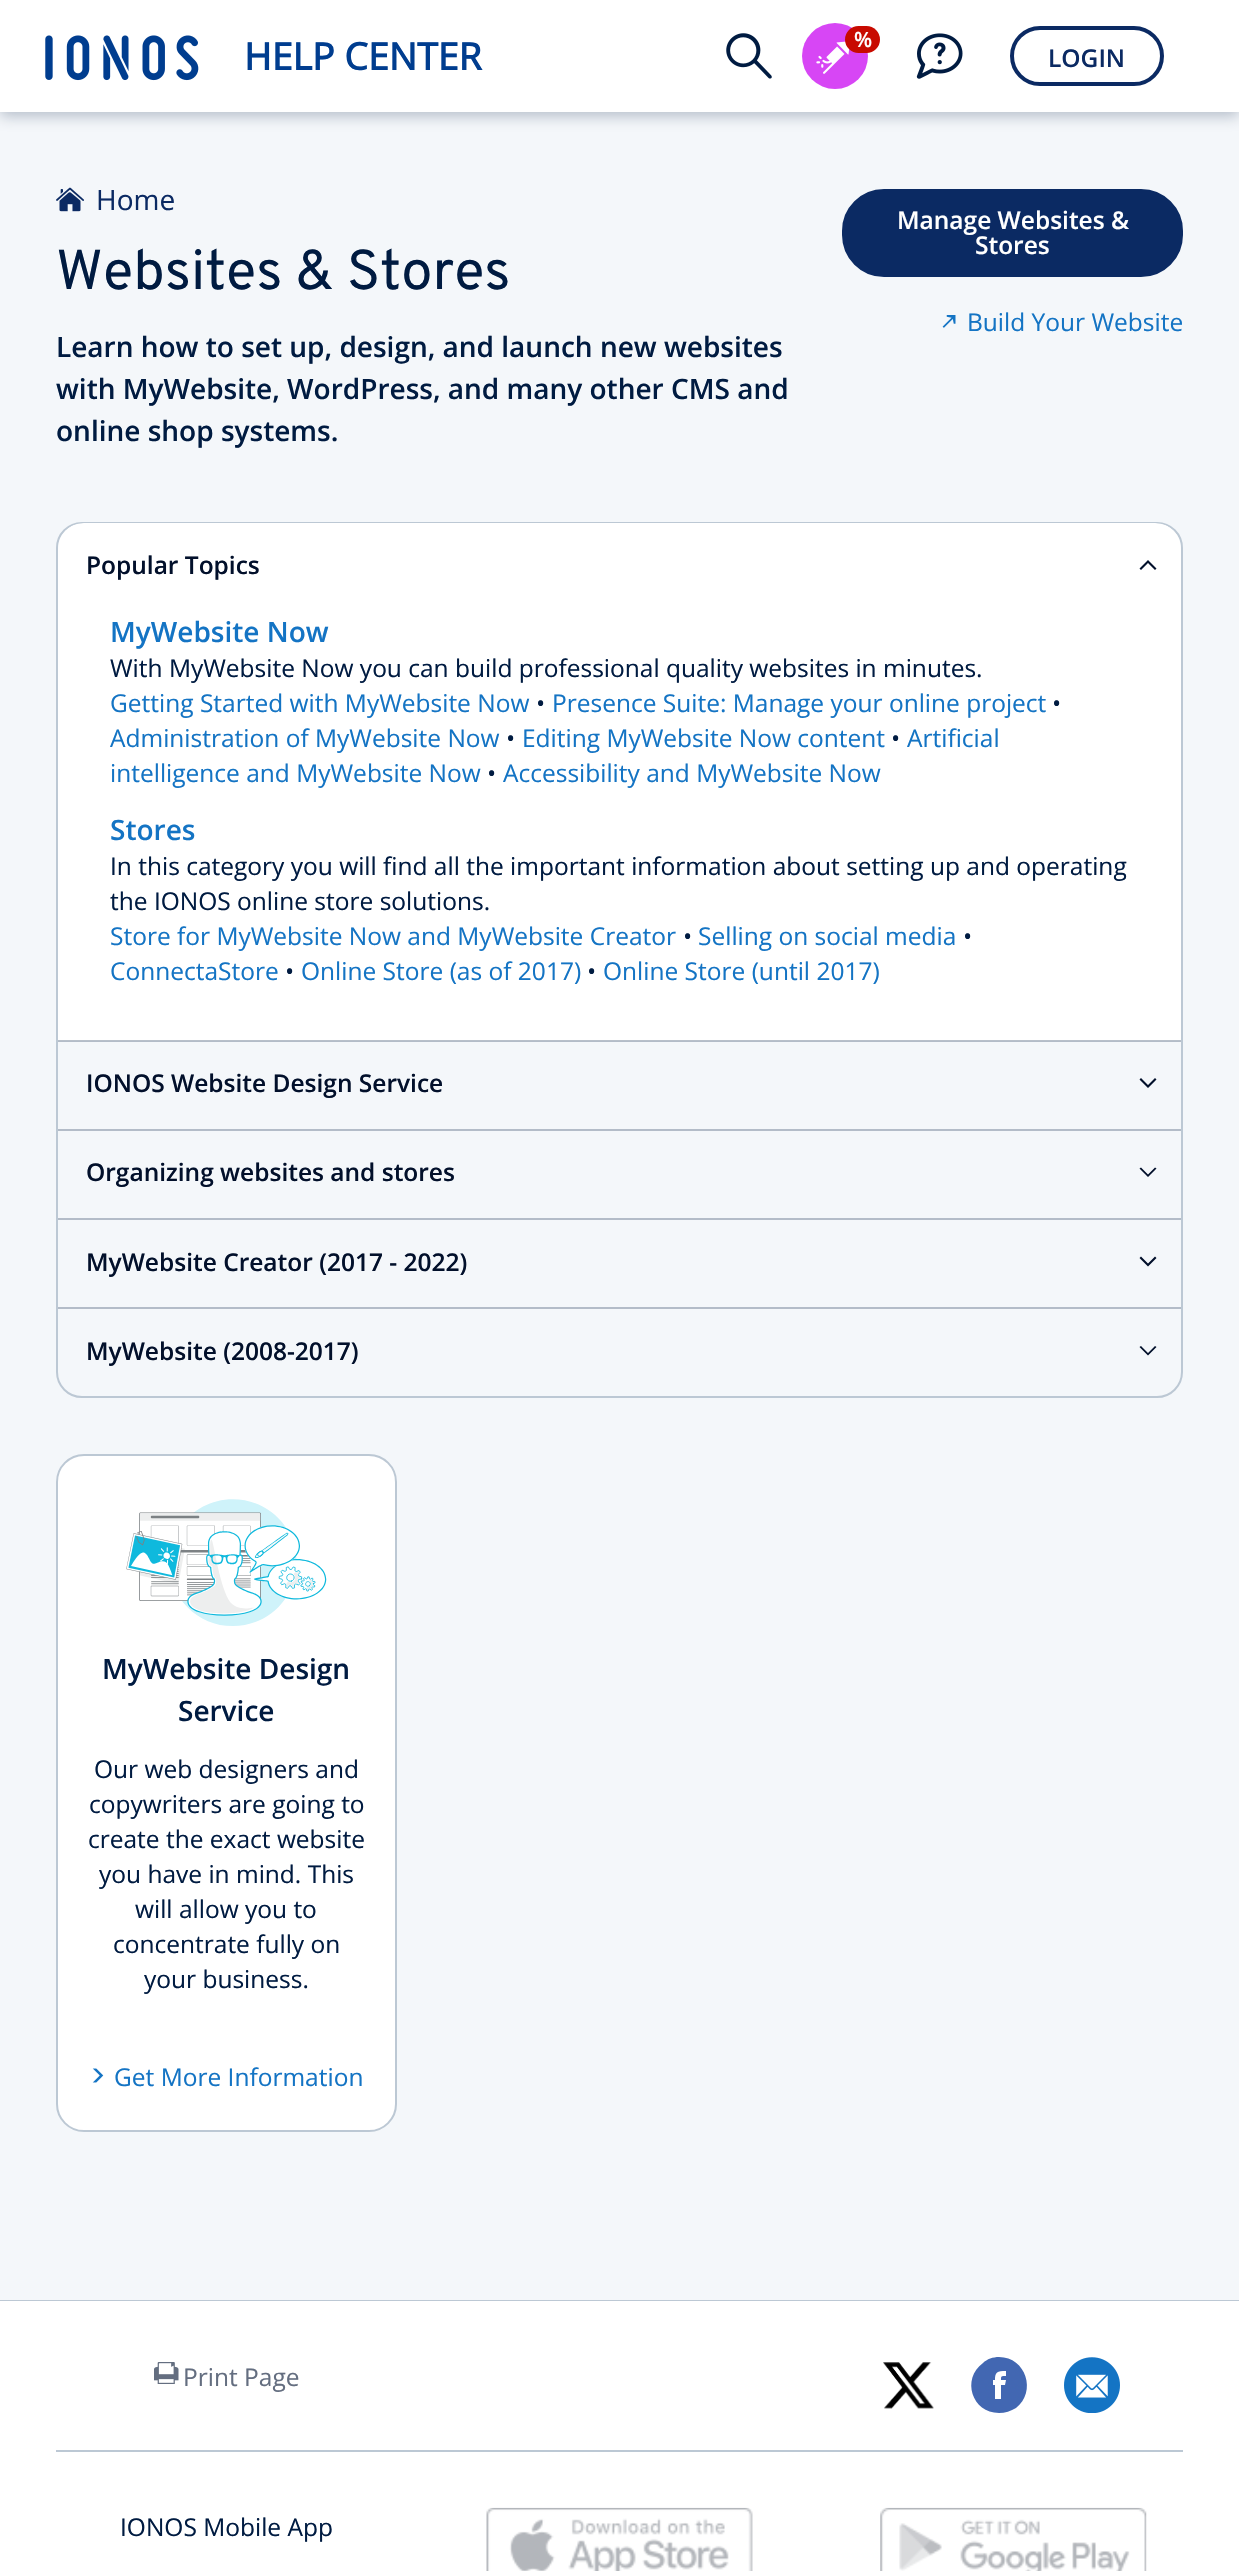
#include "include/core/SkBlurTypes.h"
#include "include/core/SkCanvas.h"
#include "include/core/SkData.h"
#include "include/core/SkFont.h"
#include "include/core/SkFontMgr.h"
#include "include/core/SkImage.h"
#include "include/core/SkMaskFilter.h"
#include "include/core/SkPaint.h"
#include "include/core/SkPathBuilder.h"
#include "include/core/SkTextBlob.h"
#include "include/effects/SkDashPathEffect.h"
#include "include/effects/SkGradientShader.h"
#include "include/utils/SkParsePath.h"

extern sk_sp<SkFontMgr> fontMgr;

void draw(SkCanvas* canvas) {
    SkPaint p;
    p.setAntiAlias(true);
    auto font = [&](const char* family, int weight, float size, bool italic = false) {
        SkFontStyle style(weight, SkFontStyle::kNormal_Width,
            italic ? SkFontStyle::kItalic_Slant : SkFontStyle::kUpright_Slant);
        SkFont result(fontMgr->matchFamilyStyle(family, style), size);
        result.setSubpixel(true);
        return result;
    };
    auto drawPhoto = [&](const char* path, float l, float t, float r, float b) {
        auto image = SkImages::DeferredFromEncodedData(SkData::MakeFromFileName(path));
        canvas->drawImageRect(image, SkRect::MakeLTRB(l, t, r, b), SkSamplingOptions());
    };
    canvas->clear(0xFFF4F7FA);
    p.setColor(0xFFB3BCC8);
    canvas->drawRect(SkRect::MakeLTRB(58, 1041, 1181, 1042), p);
    p.setColor(0x80718095);
    p.setMaskFilter(SkMaskFilter::MakeBlur(kNormal_SkBlurStyle, 7));
    canvas->drawRect(SkRect::MakeLTRB(0, 4, 1239, 116), p);
    p.setMaskFilter(nullptr);
    p.setColor(0xFFFFFFFF);
    canvas->drawRect(SkRect::MakeLTRB(0, 0, 1239, 112), p);
    drawPhoto("media/1.png", 45, 35, 199, 81);
    auto font1 = font("Open Sans", 700, 37.5f);
    p.setColor(0xFF003D8F);
    canvas->drawString("HELP CENTER", 244, 70, font1, p);
    drawPhoto("media/2.png", 726, 33, 772, 79);
    p.setColor(0xFFD746F5);
    canvas->drawCircle(835, 56, 33, p);
    drawPhoto("media/3.png", 816, 41, 850, 74);
    p.setColor(0xFFC80A00);
    canvas->drawRoundRect(SkRect::MakeLTRB(845, 26, 880, 53), 13.5f, 13.5f, p);
    auto font2 = font("Open Sans", 600, 21);
    p.setColor(0xFFFFFFFF);
    canvas->drawString("%", 854, 47, font2, p);
    drawPhoto("media/4.png", 916, 33, 963, 79);
    p.setStyle(SkPaint::kStroke_Style);
    p.setStrokeWidth(4);
    p.setColor(0xFF0B2A63);
    canvas->drawRoundRect(SkRect::MakeLTRB(1012, 28, 1162, 84), 28, 28, p);
    auto font3 = font("Open Sans", 600, 24.5f);
    p.setStyle(SkPaint::kFill_Style);
    canvas->drawString("LOGIN", 1048, 67, font3, p);
    drawPhoto("media/5.png", 56, 187, 84, 212);
    auto font4 = font("Open Sans", 400, 28);
    canvas->drawString("Home", 96, 210, font4, p);
    auto font5 = font("Overpass", 400, 56);
    p.setColor(0xFF001B41);
    canvas->drawString("Websites & Stores", 56, 289, font5, p);
    auto font6 = font("Open Sans", 600, 28);
    {
        const struct { const char* s; float x, y; } items[] = {
            {"Learn how to set up, design, and launch new websites", 56, 357},
            {"with MyWebsite, WordPress, and many other CMS and", 56, 399},
            {"online shop systems.", 56, 441},
        };
        for (auto [s, x, y] : items) {
            canvas->drawString(s, x, y, font6, p);
        }
    }
    p.setColor(0xFF0B2A63);
    canvas->drawRoundRect(SkRect::MakeLTRB(844, 191, 1181, 275), 40, 40, p);
    p.setStyle(SkPaint::kStroke_Style);
    canvas->drawRoundRect(SkRect::MakeLTRB(844, 191, 1181, 275), 40, 40, p);
    p.setStyle(SkPaint::kFill_Style);
    p.setColor(0xFFFFFFFF);
    canvas->drawString("Manage Websites &", 897, 229, font3, p);
    canvas->drawString("Stores", 975, 254, font3, p);
    drawPhoto("media/6.png", 942, 315, 956, 328);
    auto font7 = font("Open Sans", 400, 24.5f);
    p.setColor(0xFF1474C4);
    canvas->drawString("Build Your Website", 967, 331, font7, p);
    p.setStyle(SkPaint::kStroke_Style);
    p.setStrokeWidth(2);
    p.setColor(0xFFBCC8D4);
    canvas->drawRoundRect(SkRect::MakeLTRB(57, 523, 1182, 1397), 25, 25, p);
    canvas->save();
    canvas->clipPath(SkPathBuilder().moveTo(83, 523).lineTo(1156, 523).cubicTo(1170, 523, 1181, 534, 1181, 548).lineTo(1181, 1372).cubicTo(1181, 1386, 1170, 1397, 1156, 1397).lineTo(83, 1397).cubicTo(69, 1397, 58, 1386, 58, 1372).lineTo(58, 548).cubicTo(58, 534, 69, 523, 83, 523).close().detach(), true);
    p.setStyle(SkPaint::kFill_Style);
    p.setColor(0xFFFFFFFF);
    canvas->drawPath(SkPathBuilder().moveTo(84, 523).lineTo(1155, 523).cubicTo(1169.5f, 523, 1181, 534.5f, 1181, 549).lineTo(1181, 1041).lineTo(58, 1041).lineTo(58, 549).cubicTo(58, 534.5f, 69.5f, 523, 84, 523).close().detach(), p);
    canvas->restore();
    p.setColor(0xFFB8C0CA);
    canvas->drawRect(SkRect::MakeLTRB(58, 1040, 1181, 1041), p);
    p.setColor(0xFF02102B);
    canvas->drawString("Popular Topics", 86, 574, font3, p);
    canvas->drawPath(SkPathBuilder().moveTo(1148, 560).lineTo(1156.5f, 568.5f).lineTo(1155, 570).lineTo(1148, 563).lineTo(1141, 570).lineTo(1139.5f, 568.5f).close().detach(), p);
    p.setColor(0xFF1474C4);
    canvas->drawString("MyWebsite Now", 110, 642, font6, p);
    p.setColor(0xFF001B41);
    canvas->drawString("With MyWebsite Now you can build professional quality websites in minutes.", 110, 677, font7, p);
    p.setColor(0xFF1474C4);
    canvas->drawString("Getting Started with MyWebsite Now", 110, 712, font7, p);
    p.setColor(0xFF001B41);
    canvas->drawString("•", 536, 712, font7, p);
    p.setColor(0xFF1474C4);
    canvas->drawString("Presence Suite: Manage your online project", 552, 712, font7, p);
    p.setColor(0xFF001B41);
    canvas->drawString("•", 1052, 712, font7, p);
    p.setColor(0xFF1474C4);
    canvas->drawString("Administration of MyWebsite Now", 110, 747, font7, p);
    p.setColor(0xFF001B41);
    canvas->drawString("•", 506, 747, font7, p);
    p.setColor(0xFF1474C4);
    canvas->drawString("Editing MyWebsite Now content", 522, 747, font7, p);
    p.setColor(0xFF001B41);
    canvas->drawString("•", 891, 747, font7, p);
    p.setColor(0xFF1474C4);
    canvas->drawString("Artificial", 907, 747, font7, p);
    canvas->drawString("intelligence and MyWebsite Now", 110, 782, font7, p);
    p.setColor(0xFF001B41);
    canvas->drawString("•", 487, 782, font7, p);
    p.setColor(0xFF1474C4);
    canvas->drawString("Accessibility and MyWebsite Now", 503, 782, font7, p);
    canvas->drawString("Stores", 110, 840, font6, p);
    p.setColor(0xFF001B41);
    canvas->drawString("In this category you will find all the important information about setting up and operating", 110, 875, font7, p);
    canvas->drawString("the IONOS online store solutions.", 110, 910, font7, p);
    p.setColor(0xFF1474C4);
    canvas->drawString("Store for MyWebsite Now and MyWebsite Creator", 110, 945, font7, p);
    p.setColor(0xFF001B41);
    canvas->drawString("•", 683, 945, font7, p);
    p.setColor(0xFF1474C4);
    canvas->drawString("Selling on social media", 698, 945, font7, p);
    p.setColor(0xFF001B41);
    canvas->drawString("•", 963, 945, font7, p);
    p.setColor(0xFF1474C4);
    canvas->drawString("ConnectaStore", 110, 980, font7, p);
    p.setColor(0xFF001B41);
    canvas->drawString("•", 285, 980, font7, p);
    p.setColor(0xFF1474C4);
    canvas->drawString("Online Store (as of 2017)", 301, 980, font7, p);
    p.setColor(0xFF001B41);
    canvas->drawString("•", 587, 980, font7, p);
    p.setColor(0xFF1474C4);
    canvas->drawString("Online Store (until 2017)", 603, 980, font7, p);
    p.setColor(0xFFB3BCC8);
    canvas->drawRect(SkRect::MakeLTRB(58, 1129, 1181, 1131), p);
    p.setColor(0xFF02102B);
    canvas->drawString("IONOS Website Design Service", 86, 1092, font3, p);
    canvas->drawPath(SkPathBuilder().moveTo(1148, 1088).lineTo(1156.5f, 1079.5f).lineTo(1155, 1078).lineTo(1148, 1085).lineTo(1141, 1078).lineTo(1139.5f, 1079.5f).close().detach(), p);
    p.setColor(0xFFB3BCC8);
    canvas->drawRect(SkRect::MakeLTRB(58, 1218, 1181, 1220), p);
    p.setColor(0xFF02102B);
    canvas->drawString("Organizing websites and stores", 86, 1181, font3, p);
    canvas->drawPath(SkPathBuilder().moveTo(1148, 1177).lineTo(1156.5f, 1168.5f).lineTo(1155, 1167.5f).lineTo(1148, 1174.5f).lineTo(1141, 1167.5f).lineTo(1139.5f, 1168.5f).close().detach(), p);
    p.setColor(0xFFB3BCC8);
    canvas->drawRect(SkRect::MakeLTRB(58, 1307, 1181, 1309), p);
    p.setColor(0xFF02102B);
    canvas->drawString("MyWebsite Creator (2017 - 2022)", 86, 1271, font3, p);
    canvas->drawPath(SkPathBuilder().moveTo(1148, 1266.5f).lineTo(1156.5f, 1258).lineTo(1155, 1256.5f).lineTo(1148, 1263.5f).lineTo(1141, 1256.5f).lineTo(1139.5f, 1258).close().detach(), p);
    canvas->drawString("MyWebsite (2008-2017)", 86, 1360, font3, p);
    canvas->drawPath(SkPathBuilder().moveTo(1148, 1355.5f).lineTo(1156.5f, 1347).lineTo(1155, 1346).lineTo(1148, 1353).lineTo(1141, 1346).lineTo(1139.5f, 1347).close().detach(), p);
    p.setColor(0xFFFFFFFF);
    canvas->drawRoundRect(SkRect::MakeLTRB(57, 1455, 396, 2131), 27, 27, p);
    p.setStyle(SkPaint::kStroke_Style);
    p.setColor(0xFFBCC8D4);
    canvas->drawRoundRect(SkRect::MakeLTRB(57, 1455, 396, 2131), 27, 27, p);
    drawPhoto("media/7.png", 126, 1499, 327, 1626);
    p.setStyle(SkPaint::kFill_Style);
    p.setColor(0xFF001B41);
    canvas->drawString("MyWebsite Design", 102, 1679, font6, p);
    canvas->drawString("Service", 178, 1721, font6, p);
    {
        const struct { const char* s; float x, y; } items[] = {
            {"Our web designers and", 94, 1778},
            {"copywriters are going to", 89, 1813},
            {"create the exact website", 88, 1848},
            {"you have in mind. This", 99, 1883},
            {"will allow you to", 135, 1918},
            {"concentrate fully on", 113, 1953},
            {"your business.", 144, 1988},
        };
        for (auto [s, x, y] : items) {
            canvas->drawString(s, x, y, font7, p);
        }
    }
    drawPhoto("media/8.png", 92, 2068, 104, 2083);
    p.setColor(0xFF1474C4);
    canvas->drawString("Get More Information", 114, 2086, font7, p);
    p.setColor(0xFFBCC8D4);
    canvas->drawRect(SkRect::MakeLTRB(0, 2300, 1239, 2301), p);
    p.setColor(0xFFFFFFFF);
    canvas->drawRect(SkRect::MakeLTRB(0, 2301, 1239, 2571), p);
    drawPhoto("media/9.png", 154, 2362, 179, 2384);
    p.setColor(0xFF646E80);
    canvas->drawString("Print Page", 183, 2386, font7, p);
    drawPhoto("media/10.png", 883, 2362, 934, 2409);
    p.setColor(0xFF4267B2);
    canvas->drawPath(SkPathBuilder().moveTo(999, 2357).cubicTo(993, 2357, 987, 2359, 983, 2363).cubicTo(961, 2379, 972, 2413, 999, 2413).cubicTo(1005, 2413, 1011, 2411, 1016, 2408).cubicTo(1037, 2392, 1026, 2357, 999, 2357).close().moveTo(1005, 2385).lineTo(1001, 2385).lineTo(1001, 2399).lineTo(995, 2399).lineTo(995, 2385).lineTo(993, 2385).lineTo(993, 2380).lineTo(995, 2380).cubicTo(995, 2372, 997, 2371, 1006, 2371).lineTo(1006, 2376).cubicTo(1001, 2376, 1001, 2376, 1001, 2380).lineTo(1006, 2380).close().detach(), p);
    drawPhoto("media/11.png", 1064, 2357, 1120, 2413);
    p.setColor(0xFFBCC8D4);
    canvas->drawRect(SkRect::MakeLTRB(56, 2450, 1183, 2452), p);
    p.setColor(0xFF001B41);
    canvas->drawString("IONOS Mobile App", 120, 2536, font7, p);
    drawPhoto("media/12.png", 486, 2507, 753, 2571);
    drawPhoto("media/13.png", 880, 2507, 1147, 2571);
}
